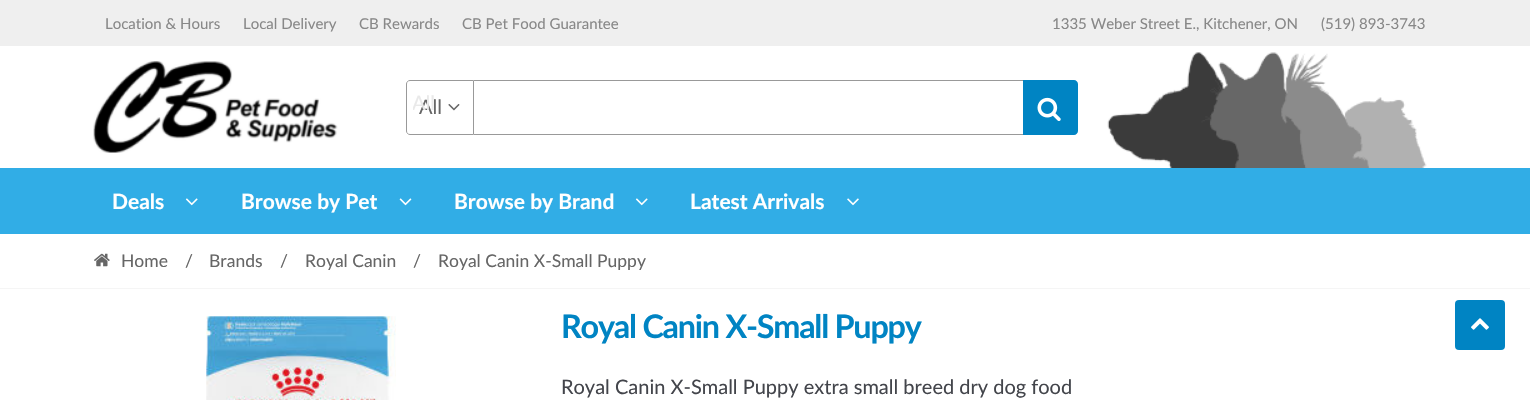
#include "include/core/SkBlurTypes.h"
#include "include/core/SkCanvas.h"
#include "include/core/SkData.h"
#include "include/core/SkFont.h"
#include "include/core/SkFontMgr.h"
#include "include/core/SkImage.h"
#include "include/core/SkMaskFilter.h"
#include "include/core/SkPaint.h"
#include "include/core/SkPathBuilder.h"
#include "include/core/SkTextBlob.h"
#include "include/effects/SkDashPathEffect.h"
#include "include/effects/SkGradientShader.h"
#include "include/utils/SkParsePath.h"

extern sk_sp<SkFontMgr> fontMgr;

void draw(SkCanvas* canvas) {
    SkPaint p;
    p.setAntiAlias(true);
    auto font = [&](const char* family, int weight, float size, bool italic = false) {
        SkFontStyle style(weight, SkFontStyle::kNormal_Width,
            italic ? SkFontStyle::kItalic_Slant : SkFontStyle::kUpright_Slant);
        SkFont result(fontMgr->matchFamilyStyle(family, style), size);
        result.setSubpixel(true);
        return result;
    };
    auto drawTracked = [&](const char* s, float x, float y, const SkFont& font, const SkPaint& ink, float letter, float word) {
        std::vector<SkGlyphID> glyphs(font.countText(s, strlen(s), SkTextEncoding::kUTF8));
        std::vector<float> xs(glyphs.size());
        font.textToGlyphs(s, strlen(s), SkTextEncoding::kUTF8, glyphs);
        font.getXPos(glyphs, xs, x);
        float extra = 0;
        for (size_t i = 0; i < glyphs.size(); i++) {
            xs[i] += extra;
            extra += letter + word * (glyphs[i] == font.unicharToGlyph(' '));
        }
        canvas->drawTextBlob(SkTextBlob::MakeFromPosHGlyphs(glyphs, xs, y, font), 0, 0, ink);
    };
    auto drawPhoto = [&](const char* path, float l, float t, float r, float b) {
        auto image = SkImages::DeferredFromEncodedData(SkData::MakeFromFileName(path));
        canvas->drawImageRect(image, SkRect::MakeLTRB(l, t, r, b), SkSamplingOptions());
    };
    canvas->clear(0xFFFFFFFF);
    drawPhoto("media/1.png", 1107, 52, 1427, 168);
    p.setColor(0xFFEFEFEF);
    canvas->drawRect(SkRect::MakeLTRB(0, 0, 1530, 46), p);
    auto font1 = font("Lato", 400, 15);
    p.setColor(0xFF888888);
    {
        const struct { const char* s; float x, y; } items[] = {
            {"Location & Hours", 105, 29},
            {"Local Delivery", 243, 29},
            {"CB Rewards", 359, 29},
            {"CB Pet Food Guarantee", 462, 29},
            {"1335 Weber Street E., Kitchener, ON", 1052, 29},
            {"(519) 893-3743", 1321, 29},
        };
        for (auto [s, x, y] : items) {
            canvas->drawString(s, x, y, font1, p);
        }
    }
    drawPhoto("media/2.png", 93, 61, 338, 153);
    p.setStyle(SkPaint::kStroke_Style);
    p.setStrokeWidth(1);
    p.setColor(0xFF999999);
    canvas->drawPath(SkPathBuilder().moveTo(410, 80.5f).lineTo(473.5f, 80.5f).lineTo(473.5f, 134.5f).lineTo(410, 134.5f).cubicTo(408, 134.5f, 406.5f, 133, 406.5f, 131).lineTo(406.5f, 84).cubicTo(406.5f, 82, 408, 80.5f, 410, 80.5f).close().detach(), p);
    auto font2 = font("Lato", 400, 20);
    p.setStyle(SkPaint::kFill_Style);
    p.setColor(0xFF666666);
    canvas->drawString("All", 419, 114, font2, p);
    canvas->save();
    canvas->clipRect(SkRect::MakeLTRB(413, 89, 654, 115));
    p.setColor(0xFFE9E9E9);
    canvas->drawString("All", 412, 110, font2, p);
    canvas->restore();
    drawPhoto("media/3.png", 448, 104, 460, 111);
    p.setColor(0xFF999999);
    canvas->drawRect(SkRect::MakeLTRB(474, 80, 1023, 81), p);
    canvas->drawRect(SkRect::MakeLTRB(474, 134, 1023, 135), p);
    p.setColor(0xFF0084C3);
    canvas->drawPath(SkPathBuilder().moveTo(1023, 80).lineTo(1074, 80).cubicTo(1076, 80, 1078, 82, 1078, 84).lineTo(1078, 131).cubicTo(1078, 133, 1076, 135, 1074, 135).lineTo(1023, 135).close().detach(), p);
    drawPhoto("media/4.png", 1037, 97, 1061, 121);
    p.setColor(0xFF31ADE6);
    canvas->drawRect(SkRect::MakeLTRB(0, 168, 1530, 234), p);
    auto font3 = font("Lato", 700, 21);
    p.setColor(0xFFFFFFFF);
    canvas->drawString("Deals", 112, 209, font3, p);
    drawPhoto("media/5.png", 185, 198, 198, 206);
    canvas->drawString("Browse by Pet", 241, 209, font3, p);
    drawPhoto("media/6.png", 399, 198, 412, 206);
    canvas->drawString("Browse by Brand", 454, 209, font3, p);
    drawPhoto("media/5.png", 635, 198, 648, 206);
    canvas->drawString("Latest Arrivals", 690, 209, font3, p);
    drawPhoto("media/7.png", 847, 198, 859, 206);
    p.setColor(0xFFF5F5F5);
    canvas->drawRect(SkRect::MakeLTRB(0, 288, 1530, 289), p);
    drawPhoto("media/8.png", 94, 253, 110, 267);
    auto font4 = font("Lato", 400, 17.5f);
    p.setColor(0xFF666666);
    {
        const struct { const char* s; float x, y; } items[] = {
            {"Home", 121, 267},
            {"/", 185, 267},
            {"Brands", 209, 267},
            {"/", 280, 267},
            {"Royal Canin", 305, 267},
            {"/", 413, 267},
            {"Royal Canin X-Small Puppy", 438, 267},
        };
        for (auto [s, x, y] : items) {
            canvas->drawString(s, x, y, font4, p);
        }
    }
    drawPhoto("media/9.png", 206, 316, 396, 400);
    auto font5 = font("Lato", 700, 32.4f);
    p.setColor(0xFF0084C3);
    drawTracked("Royal Canin X-Small Puppy", 561, 338, font5, p, -1.25f, 0);
    p.setColor(0xFF43454B);
    canvas->drawString("Royal Canin X-Small Puppy extra small breed dry dog food", 561, 394, font2, p);
    p.setColor(0xFF0084C3);
    canvas->drawRoundRect(SkRect::MakeLTRB(1455, 300, 1505, 350), 4, 4, p);
    drawPhoto("media/10.png", 1471, 318, 1489, 330);
}
